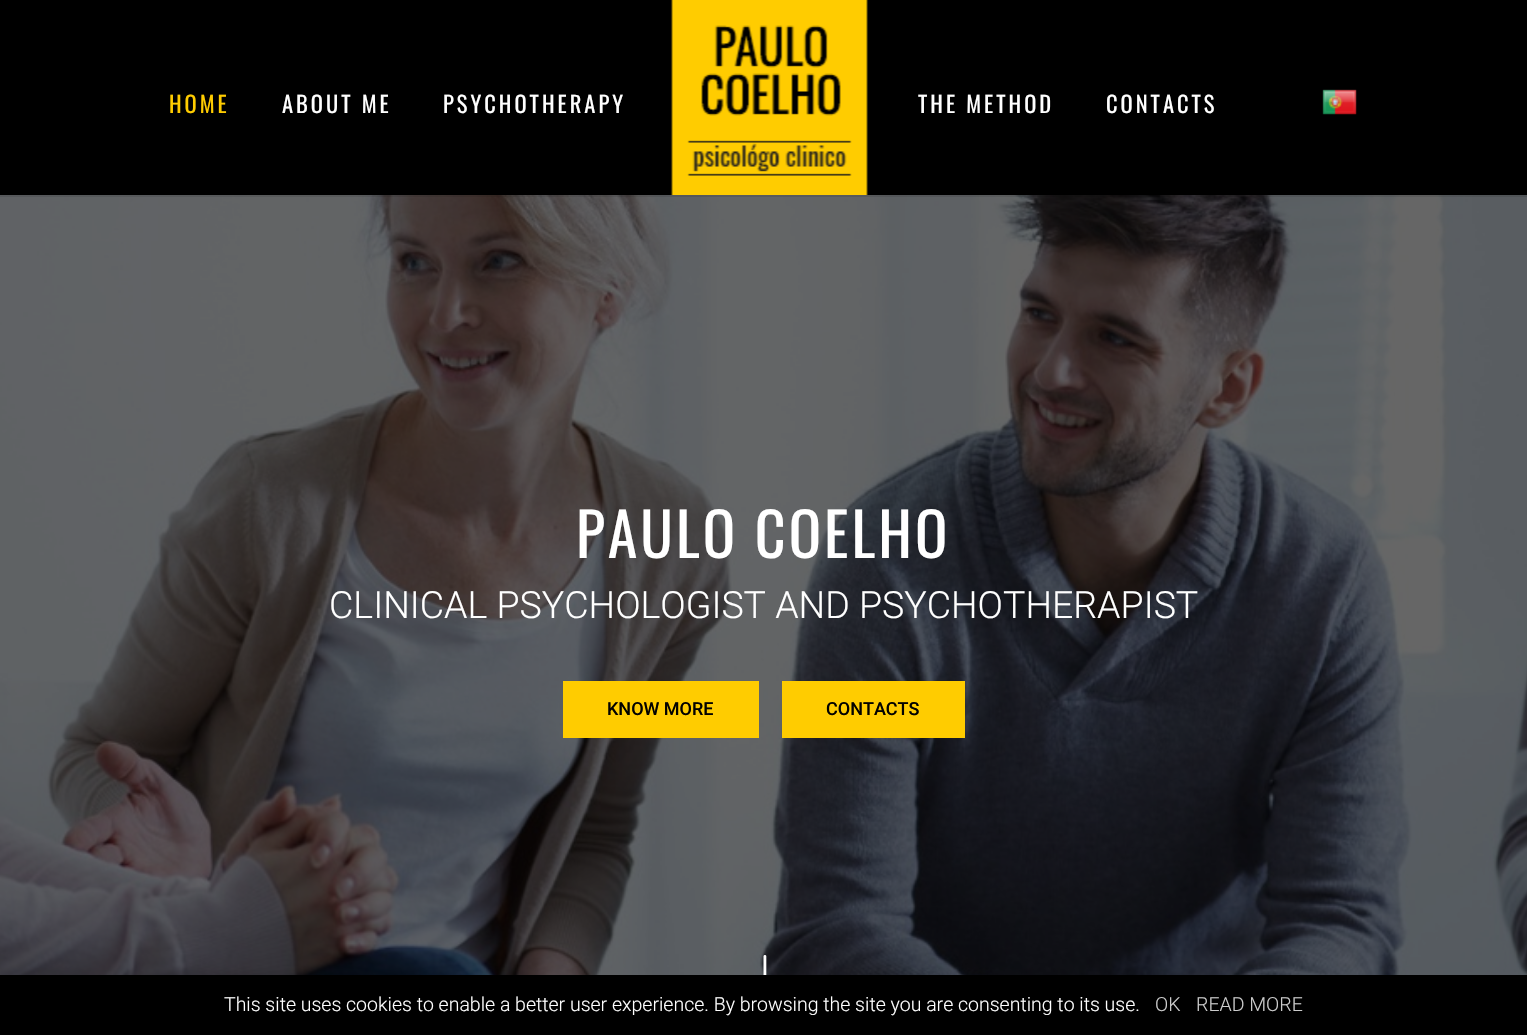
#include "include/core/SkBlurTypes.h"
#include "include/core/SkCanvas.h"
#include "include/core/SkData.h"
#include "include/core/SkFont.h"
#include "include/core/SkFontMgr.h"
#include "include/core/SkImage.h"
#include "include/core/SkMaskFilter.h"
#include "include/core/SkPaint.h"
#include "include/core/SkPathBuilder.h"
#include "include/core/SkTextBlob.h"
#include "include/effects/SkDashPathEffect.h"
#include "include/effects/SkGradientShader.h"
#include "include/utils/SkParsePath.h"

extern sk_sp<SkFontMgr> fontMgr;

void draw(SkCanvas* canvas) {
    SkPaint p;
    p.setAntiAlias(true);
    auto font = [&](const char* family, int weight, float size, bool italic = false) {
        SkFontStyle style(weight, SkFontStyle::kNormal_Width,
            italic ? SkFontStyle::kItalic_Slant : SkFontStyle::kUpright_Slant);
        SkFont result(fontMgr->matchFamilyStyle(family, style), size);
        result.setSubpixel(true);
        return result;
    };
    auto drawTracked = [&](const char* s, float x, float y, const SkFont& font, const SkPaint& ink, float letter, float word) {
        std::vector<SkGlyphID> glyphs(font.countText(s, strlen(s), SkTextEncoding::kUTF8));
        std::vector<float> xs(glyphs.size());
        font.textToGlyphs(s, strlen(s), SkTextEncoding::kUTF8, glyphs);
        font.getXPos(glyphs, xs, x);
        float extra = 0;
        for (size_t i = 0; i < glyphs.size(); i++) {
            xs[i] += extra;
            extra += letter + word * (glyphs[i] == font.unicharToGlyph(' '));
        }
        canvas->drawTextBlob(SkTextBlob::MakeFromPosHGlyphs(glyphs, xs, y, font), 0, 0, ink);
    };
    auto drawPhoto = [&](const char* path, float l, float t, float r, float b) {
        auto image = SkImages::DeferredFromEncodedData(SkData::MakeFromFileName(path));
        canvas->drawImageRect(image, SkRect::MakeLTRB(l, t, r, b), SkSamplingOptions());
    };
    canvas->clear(0xFFFFFFFF);
    drawPhoto("media/3.png", 0, 195, 1527, 975);
    p.setColor(0x1A000000);
    canvas->drawRect(SkRect::MakeLTRB(0, 195, 1527, 197), p);
    p.setColor(0xFF000000);
    canvas->drawRect(SkRect::MakeLTRB(0, 0, 1527, 195), p);
    auto font1 = font("Oswald", 400, 22.5f);
    p.setColor(0xFFFFCC00);
    drawTracked("HOME", 169, 113, font1, p, 3, 0);
    p.setColor(0xFFFFFFFF);
    drawTracked("ABOUT ME", 282, 113, font1, p, 3, 0);
    drawTracked("PSYCHOTHERAPY", 443, 113, font1, p, 3, 0);
    drawPhoto("media/1.png", 671, 0, 868, 195);
    drawTracked("THE METHOD", 918, 113, font1, p, 3, 0);
    drawTracked("CONTACTS", 1106, 113, font1, p, 3, 0);
    drawPhoto("media/2.png", 1322, 89, 1357, 115);
    auto font2 = font("Oswald", 400, 60);
    drawTracked("PAULO COELHO", 576, 558, font2, p, 3, 0);
    auto font3 = font("Roboto", 300, 37.5f);
    canvas->drawString("CLINICAL PSYCHOLOGIST AND PSYCHOTHERAPIST", 329, 618, font3, p);
    p.setColor(0xFFFFCC00);
    canvas->drawRect(SkRect::MakeLTRB(563, 681, 759, 738), p);
    auto font4 = font("Roboto", 500, 18);
    p.setColor(0xFF030200);
    canvas->drawString("KNOW MORE", 607, 715, font4, p);
    p.setColor(0xFFFFCC00);
    canvas->drawRect(SkRect::MakeLTRB(782, 681, 965, 738), p);
    p.setColor(0xFF030200);
    canvas->drawString("CONTACTS", 826, 715, font4, p);
    drawPhoto("media/4.png", 763, 955, 767, 975);
    p.setColor(0xFF000000);
    canvas->drawRect(SkRect::MakeLTRB(0, 975, 1527, 1035), p);
    auto font5 = font("Roboto", 300, 19.5f);
    p.setColor(0xFFFFFFFF);
    canvas->drawString("This site uses cookies to enable a better user experience. By browsing the site you are consenting to its use.", 224, 1011, font5, p);
    p.setColor(0xFFCCCCCC);
    canvas->drawString("OK", 1155, 1011, font5, p);
    canvas->drawString("READ MORE", 1196, 1011, font5, p);
}
